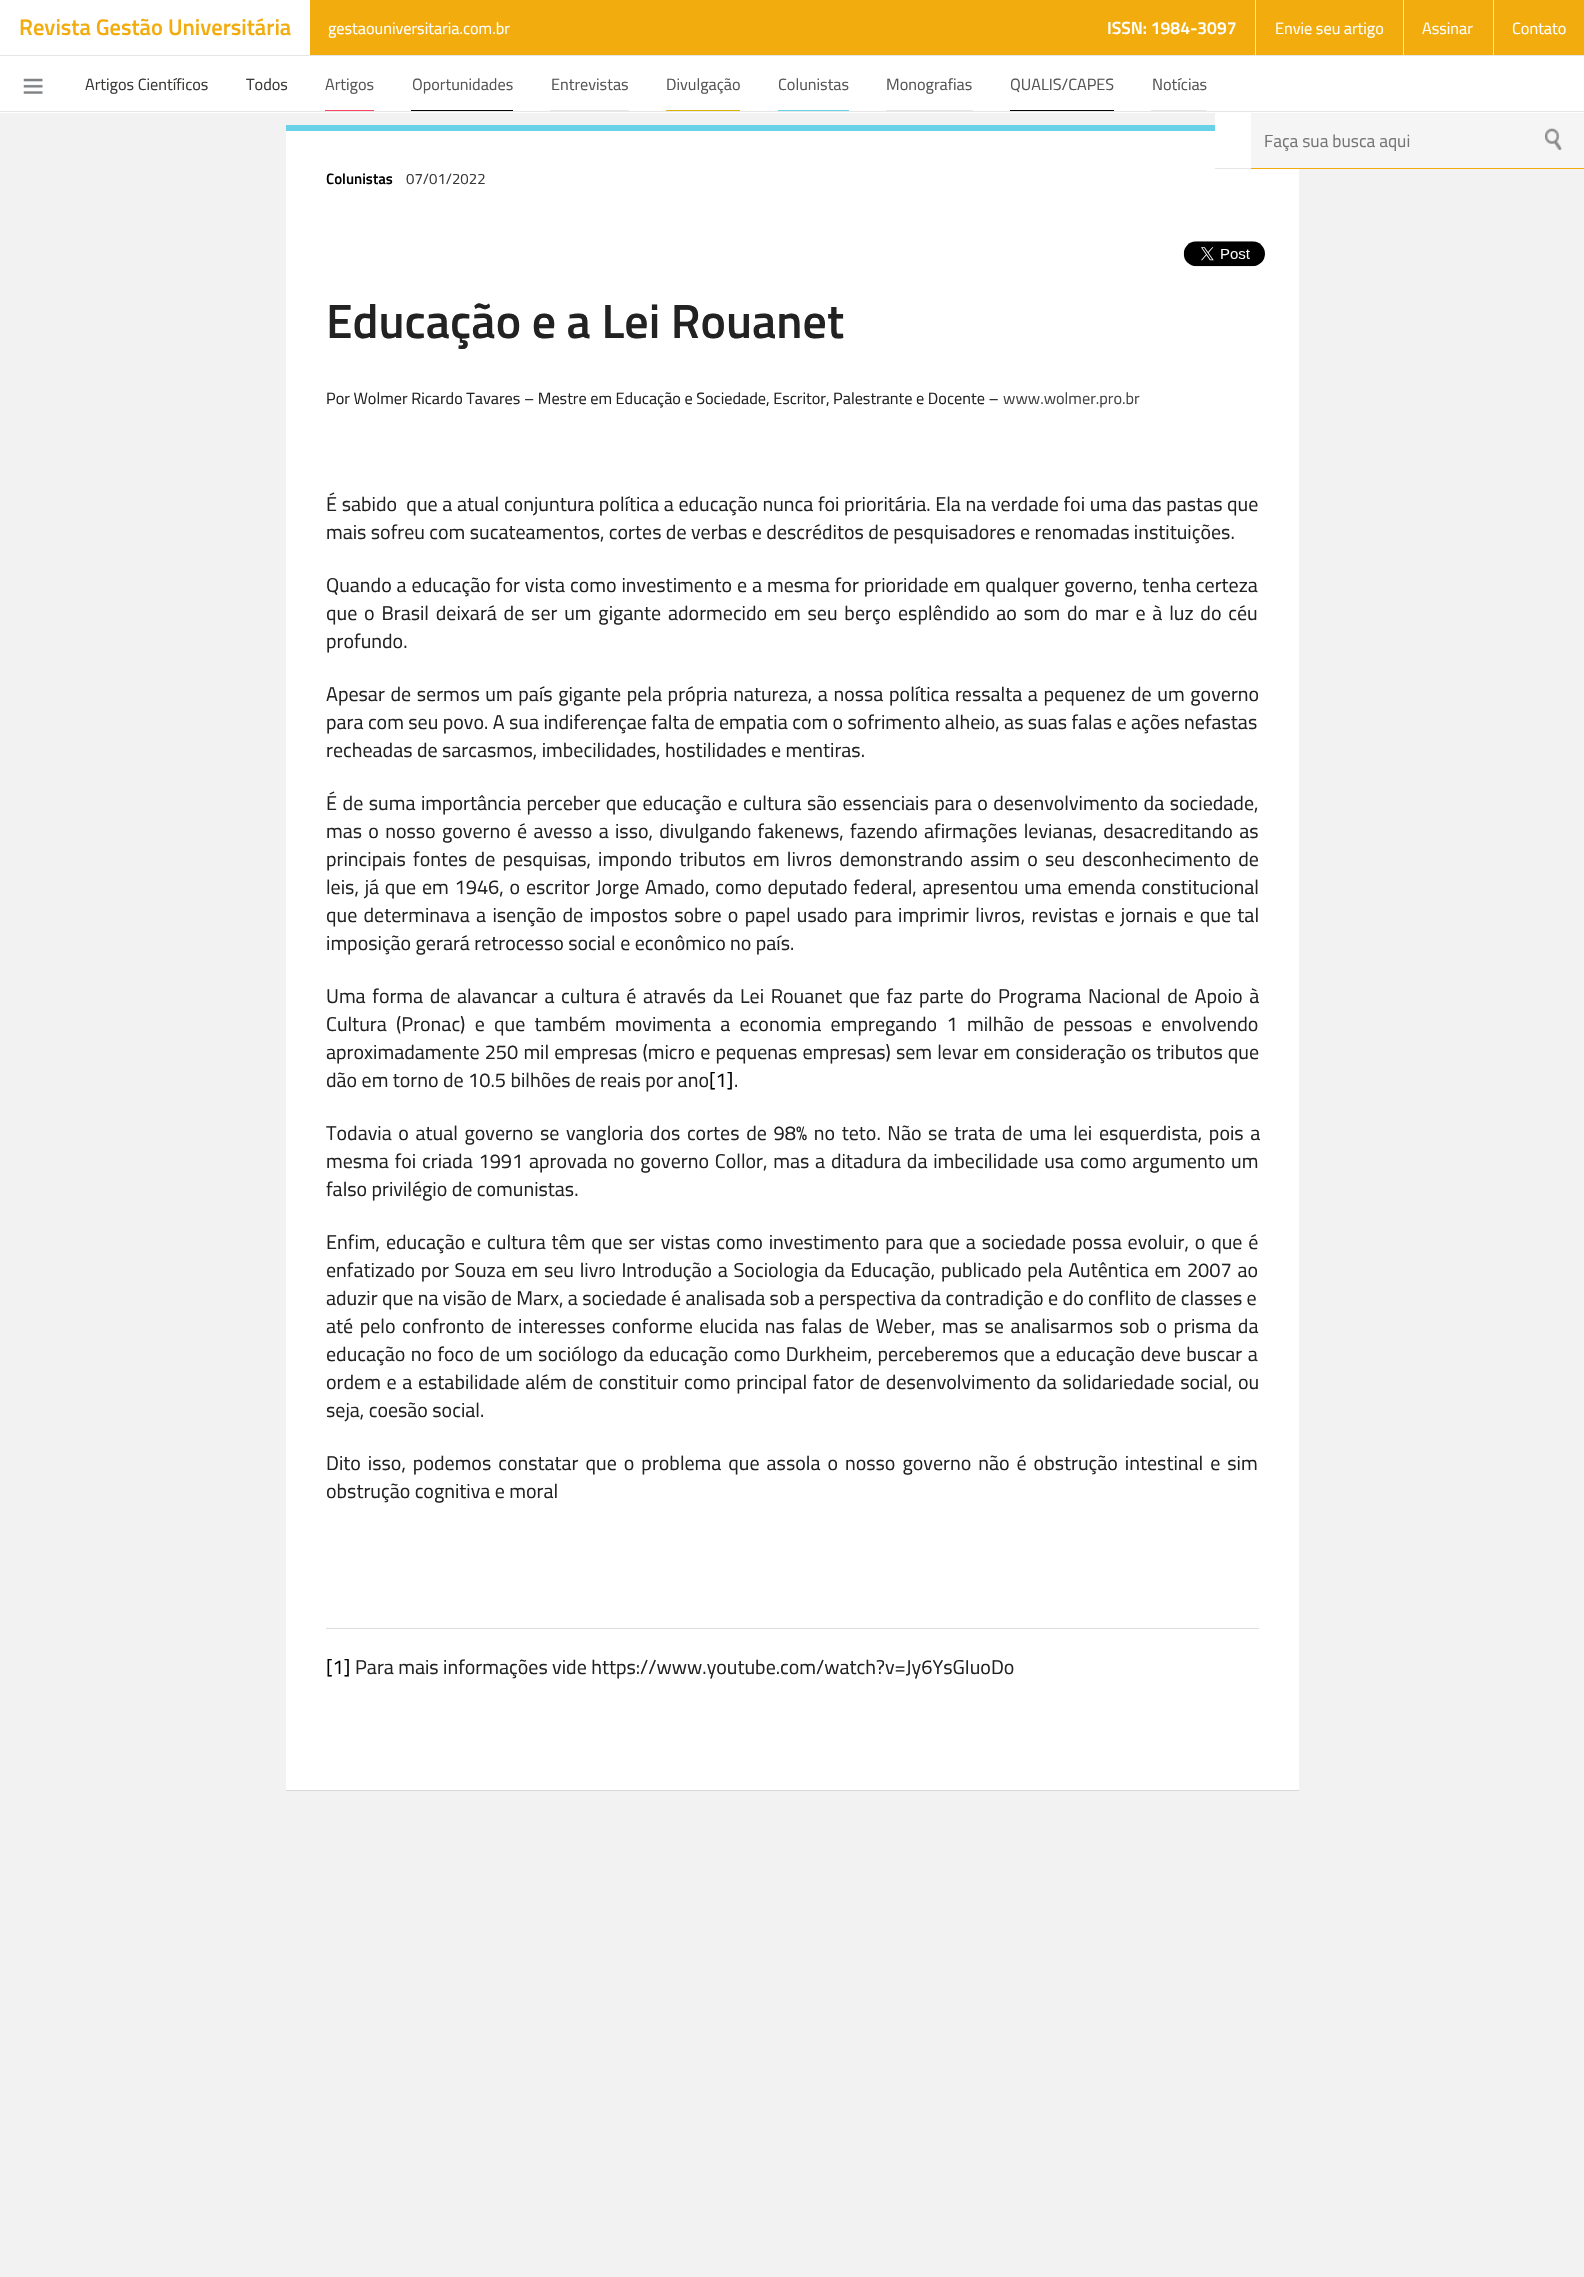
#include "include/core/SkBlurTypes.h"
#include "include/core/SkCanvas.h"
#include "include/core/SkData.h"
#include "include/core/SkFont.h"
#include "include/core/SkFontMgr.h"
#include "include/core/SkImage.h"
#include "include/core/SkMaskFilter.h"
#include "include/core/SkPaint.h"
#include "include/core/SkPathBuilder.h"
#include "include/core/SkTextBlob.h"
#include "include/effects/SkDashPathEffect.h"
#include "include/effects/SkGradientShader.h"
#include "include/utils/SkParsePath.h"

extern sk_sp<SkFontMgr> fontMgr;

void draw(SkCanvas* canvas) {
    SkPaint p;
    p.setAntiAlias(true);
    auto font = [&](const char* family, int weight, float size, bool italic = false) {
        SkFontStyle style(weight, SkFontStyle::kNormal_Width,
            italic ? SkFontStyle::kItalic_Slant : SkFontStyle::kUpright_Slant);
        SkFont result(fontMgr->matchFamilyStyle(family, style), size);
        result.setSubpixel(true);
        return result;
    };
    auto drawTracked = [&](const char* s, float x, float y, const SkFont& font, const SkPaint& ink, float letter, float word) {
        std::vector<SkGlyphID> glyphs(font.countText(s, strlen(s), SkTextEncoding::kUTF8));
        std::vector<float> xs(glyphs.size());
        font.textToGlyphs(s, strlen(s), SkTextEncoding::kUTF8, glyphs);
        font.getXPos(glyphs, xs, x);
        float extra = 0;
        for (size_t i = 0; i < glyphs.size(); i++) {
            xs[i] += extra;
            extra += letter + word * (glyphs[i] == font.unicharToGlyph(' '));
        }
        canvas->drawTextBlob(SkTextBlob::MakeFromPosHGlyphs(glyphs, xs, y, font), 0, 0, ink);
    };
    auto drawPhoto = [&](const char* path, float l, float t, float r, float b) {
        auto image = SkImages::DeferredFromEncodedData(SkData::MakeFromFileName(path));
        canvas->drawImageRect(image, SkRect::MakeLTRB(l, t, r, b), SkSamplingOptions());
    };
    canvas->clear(0xFFF2F2F2);
    {
        const struct { float l, t, r, b; SkColor color; } items[] = {
            {310, 0, 1255, 55, 0xFFF2AC0D},
            {529, 55, 1255, 56, 0xFFE6E6E6},
            {0, 0, 310, 55, 0xFFFFFFFF},
            {0, 55, 529, 56, 0xFFE6E6E6},
        };
        for (auto [l, t, r, b, color] : items) {
            p.setColor(color);
            canvas->drawRect(SkRect::MakeLTRB(l, t, r, b), p);
        }
    }
    auto font1 = font("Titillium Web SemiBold", 600, 22.5f);
    p.setColor(0xFFF2AC0D);
    canvas->drawString("Revista Gestão Universitária", 19, 35, font1, p);
    auto font2 = font("Titillium Web", 400, 16.25f);
    p.setColor(0xFFFFFFFF);
    canvas->drawString("gestaouniversitaria.com.br", 328, 34, font2, p);
    auto font3 = font("Titillium Web SemiBold", 600, 17.5f);
    canvas->drawString("ISSN: 1984-3097", 1107, 34, font3, p);
    {
        const struct { float l, t, r, b; SkColor color; } items[] = {
            {1255, 0, 1256, 56, 0xFFE6E6E6},
            {1256, 0, 1403, 55, 0xFFF2AC0D},
            {1256, 55, 1403, 56, 0xFFE6E6E6},
        };
        for (auto [l, t, r, b, color] : items) {
            p.setColor(color);
            canvas->drawRect(SkRect::MakeLTRB(l, t, r, b), p);
        }
    }
    p.setColor(0xFFFFFFFF);
    canvas->drawString("Envie seu artigo", 1275, 34, font2, p);
    {
        const struct { float l, t, r, b; SkColor color; } items[] = {
            {1403, 0, 1404, 56, 0xFFE6E6E6},
            {1404, 0, 1493, 55, 0xFFF2AC0D},
            {1404, 55, 1493, 56, 0xFFE6E6E6},
        };
        for (auto [l, t, r, b, color] : items) {
            p.setColor(color);
            canvas->drawRect(SkRect::MakeLTRB(l, t, r, b), p);
        }
    }
    p.setColor(0xFFFFFFFF);
    canvas->drawString("Assinar", 1422, 34, font2, p);
    {
        const struct { float l, t, r, b; SkColor color; } items[] = {
            {1493, 0, 1494, 56, 0xFFE6E6E6},
            {1494, 0, 1584, 55, 0xFFF2AC0D},
            {1494, 55, 1584, 56, 0xFFE6E6E6},
        };
        for (auto [l, t, r, b, color] : items) {
            p.setColor(color);
            canvas->drawRect(SkRect::MakeLTRB(l, t, r, b), p);
        }
    }
    p.setColor(0xFFFFFFFF);
    canvas->drawString("Contato", 1512, 34, font2, p);
    {
        const struct { float l, t, r, b; SkColor color; } items[] = {
            {306, 56, 1584, 113, 0xFFFFFFFF},
            {306, 111, 1584, 112, 0xFFE6E6E6},
            {0, 56, 306, 113, 0xFFFFFFFF},
            {0, 111, 306, 112, 0xFFE6E6E6},
        };
        for (auto [l, t, r, b, color] : items) {
            p.setColor(color);
            canvas->drawRect(SkRect::MakeLTRB(l, t, r, b), p);
        }
    }
    drawPhoto("media/1.png", 23, 78, 43, 94);
    p.setColor(0xFF393836);
    canvas->drawString("Artigos Científicos", 85, 90, font2, p);
    canvas->drawString("Todos", 246, 90, font2, p);
    p.setColor(0xFFFE4365);
    canvas->drawRect(SkRect::MakeLTRB(325, 110, 374, 111), p);
    p.setColor(0xFF555555);
    canvas->drawString("Artigos", 325, 90, font2, p);
    p.setColor(0xFF070707);
    canvas->drawRect(SkRect::MakeLTRB(411, 110, 513, 111), p);
    p.setColor(0xFF555555);
    canvas->drawString("Oportunidades", 412, 90, font2, p);
    p.setColor(0xFFE6E6E6);
    canvas->drawRect(SkRect::MakeLTRB(550, 110, 629, 111), p);
    p.setColor(0xFF555555);
    canvas->drawString("Entrevistas", 551, 90, font2, p);
    p.setColor(0xFFDEB40A);
    canvas->drawRect(SkRect::MakeLTRB(666, 110, 740, 111), p);
    p.setColor(0xFF555555);
    canvas->drawString("Divulgação", 666, 90, font2, p);
    p.setColor(0xFF69D2E7);
    canvas->drawRect(SkRect::MakeLTRB(778, 110, 849, 111), p);
    p.setColor(0xFF555555);
    canvas->drawString("Colunistas", 778, 90, font2, p);
    p.setColor(0xFFE6E6E6);
    canvas->drawRect(SkRect::MakeLTRB(886, 110, 973, 111), p);
    p.setColor(0xFF555555);
    canvas->drawString("Monografias", 886, 90, font2, p);
    p.setColor(0xFF070707);
    canvas->drawRect(SkRect::MakeLTRB(1010, 110, 1114, 111), p);
    p.setColor(0xFF555555);
    canvas->drawString("QUALIS/CAPES", 1010, 90, font2, p);
    p.setColor(0xFFE6E6E6);
    canvas->drawRect(SkRect::MakeLTRB(1151, 110, 1206, 111), p);
    p.setColor(0xFF555555);
    canvas->drawString("Notícias", 1152, 90, font2, p);
    {
        const struct { float l, t, r, b; SkColor color; } items[] = {
            {1215, 113, 1251, 131, 0xFFFFFFFF},
            {286, 131, 1299, 1790, 0xFFFFFFFF},
            {1215, 168, 1251, 169, 0xFFE6E6E6},
            {1251, 113, 1584, 168, 0xFFF5F5F5},
        };
        for (auto [l, t, r, b, color] : items) {
            p.setColor(color);
            canvas->drawRect(SkRect::MakeLTRB(l, t, r, b), p);
        }
    }
    drawPhoto("media/2.png", 1545, 128, 1562, 150);
    p.setColor(0xFFF2AC0D);
    canvas->drawRect(SkRect::MakeLTRB(1251, 168, 1584, 169), p);
    auto font4 = font("Titillium Web", 400, 17.5f);
    p.setColor(0xFF757575);
    canvas->drawString("Faça sua busca aqui", 1264, 147, font4, p);
    p.setColor(0xFF69D2E7);
    canvas->drawRect(SkRect::MakeLTRB(286, 125, 1215, 131), p);
    p.setColor(0xFFD9D9D9);
    canvas->drawRect(SkRect::MakeLTRB(286, 1790, 1299, 1791), p);
    auto font5 = font("Titillium Web SemiBold", 600, 15);
    p.setColor(0xFF000000);
    canvas->drawString("Colunistas", 326, 184, font5, p);
    auto font6 = font("Titillium Web", 400, 15);
    p.setColor(0xFF393836);
    canvas->drawString("07/01/2022", 406, 184, font6, p);
    drawPhoto("media/3.png", 1183, 241, 1265, 267);
    auto font7 = font("Titillium Web SemiBold", 600, 48);
    p.setColor(0xFF222222);
    canvas->drawString("Educação e a Lei Rouanet", 326, 338, font7, p);
    canvas->drawString("Por Wolmer Ricardo Tavares – Mestre em Educação e Sociedade, Escritor, Palestrante e Docente –", 326, 404, font2, p);
    p.setColor(0xFF444444);
    canvas->drawString("www.wolmer.pro.br", 1003, 404, font2, p);
    auto font8 = font("Titillium Web", 400, 20);
    p.setColor(0xFF222222);
    drawTracked("É sabido  que a atual conjuntura política a educação nunca foi prioritária. Ela na verdade foi uma das pastas que", 326, 511, font8, p, 0, 0.25f);
    canvas->drawString("mais sofreu com sucateamentos, cortes de verbas e descréditos de pesquisadores e renomadas instituições.", 326, 539, font8, p);
    drawTracked("Quando a educação for vista como investimento e a mesma for prioridade em qualquer governo, tenha certeza", 326, 592, font8, p, 0, 0.5f);
    drawTracked("que o Brasil deixará de ser um gigante adormecido em seu berço esplêndido ao som do mar e à luz do céu", 326, 620, font8, p, 0, 2.4f);
    canvas->drawString("profundo.", 326, 648, font8, p);
    drawTracked("Apesar de sermos um país gigante pela própria natureza, a nossa política ressalta a pequenez de um governo", 326, 701, font8, p, 0, 1.25f);
    canvas->drawString("para com seu povo. A sua indiferençae falta de empatia com o sofrimento alheio, as suas falas e ações nefastas", 326, 729, font8, p);
    canvas->drawString("recheadas de sarcasmos, imbecilidades, hostilidades e mentiras.", 326, 757, font8, p);
    drawTracked("É de suma importância perceber que educação e cultura são essenciais para o desenvolvimento da sociedade,", 326, 810, font8, p, 0, 1.1f);
    drawTracked("mas o nosso governo é avesso a isso, divulgando fakenews, fazendo afirmações levianas, desacreditando as", 326, 838, font8, p, 0, 1.9f);
    drawTracked("principais fontes de pesquisas, impondo tributos em livros demonstrando assim o seu desconhecimento de", 326, 866, font8, p, 0, 2.75f);
    drawTracked("leis, já que em 1946, o escritor Jorge Amado, como deputado federal, apresentou uma emenda constitucional", 326, 894, font8, p, 0, 1.4f);
    drawTracked("que determinava a isenção de impostos sobre o papel usado para imprimir livros, revistas e jornais e que tal", 326, 922, font8, p, 0, 1.9f);
    canvas->drawString("imposição gerará retrocesso social e econômico no país.", 326, 950, font8, p);
    drawTracked("Uma forma de alavancar a cultura é através da Lei Rouanet que faz parte do Programa Nacional de Apoio à", 326, 1003, font8, p, 0, 2.25f);
    drawTracked("Cultura (Pronac) e que também movimenta a economia empregando 1 milhão de pessoas e envolvendo", 326, 1031, font8, p, 0, 4.9f);
    drawTracked("aproximadamente 250 mil empresas (micro e pequenas empresas) sem levar em consideração os tributos que", 326, 1059, font8, p, 0, 0.75f);
    canvas->drawString("dão em torno de 10.5 bilhões de reais por ano", 326, 1087, font8, p);
    p.setColor(0xFF000000);
    canvas->drawString("[1]", 709, 1087, font8, p);
    p.setColor(0xFF222222);
    canvas->drawString(".", 734, 1087, font8, p);
    drawTracked("Todavia o atual governo se vangloria dos cortes de 98% no teto. Não se trata de uma lei esquerdista, pois a", 326, 1140, font8, p, 0, 2.25f);
    drawTracked("mesma foi criada 1991 aprovada no governo Collor, mas a ditadura da imbecilidade usa como argumento um", 326, 1168, font8, p, 0, 1.4f);
    canvas->drawString("falso privilégio de comunistas.", 326, 1196, font8, p);
    drawTracked("Enfim, educação e cultura têm que ser vistas como investimento para que a sociedade possa evoluir, o que é", 326, 1249, font8, p, 0, 1.5f);
    drawTracked("enfatizado por Souza em seu livro Introdução a Sociologia da Educação, publicado pela Autêntica em 2007 ao", 326, 1277, font8, p, 0, 1.3f);
    canvas->drawString("aduzir que na visão de Marx, a sociedade é analisada sob a perspectiva da contradição e do conflito de classes e", 326, 1305, font8, p);
    drawTracked("até pelo confronto de interesses conforme elucida nas falas de Weber, mas se analisarmos sob o prisma da", 326, 1333, font8, p, 0, 2.1f);
    drawTracked("educação no foco de um sociólogo da educação como Durkheim, perceberemos que a educação deve buscar a", 326, 1361, font8, p, 0, 1);
    drawTracked("ordem e a estabilidade além de constituir como principal fator de desenvolvimento da solidariedade social, ou", 326, 1389, font8, p, 0, 1.25f);
    canvas->drawString("seja, coesão social.", 326, 1417, font8, p);
    drawTracked("Dito isso, podemos constatar que o problema que assola o nosso governo não é obstrução intestinal e sim", 326, 1470, font8, p, 0, 2.6f);
    canvas->drawString("obstrução cognitiva e moral", 326, 1498, font8, p);
    p.setColor(0xFFDDDDDD);
    canvas->drawRect(SkRect::MakeLTRB(326, 1628, 1259, 1629), p);
    p.setColor(0xFF000000);
    canvas->drawString("[1]", 326, 1674, font8, p);
    p.setColor(0xFF222222);
    canvas->drawString("Para mais informações vide https://www.youtube.com/watch?v=Jy6YsGIuoDo", 355, 1674, font8, p);
}
